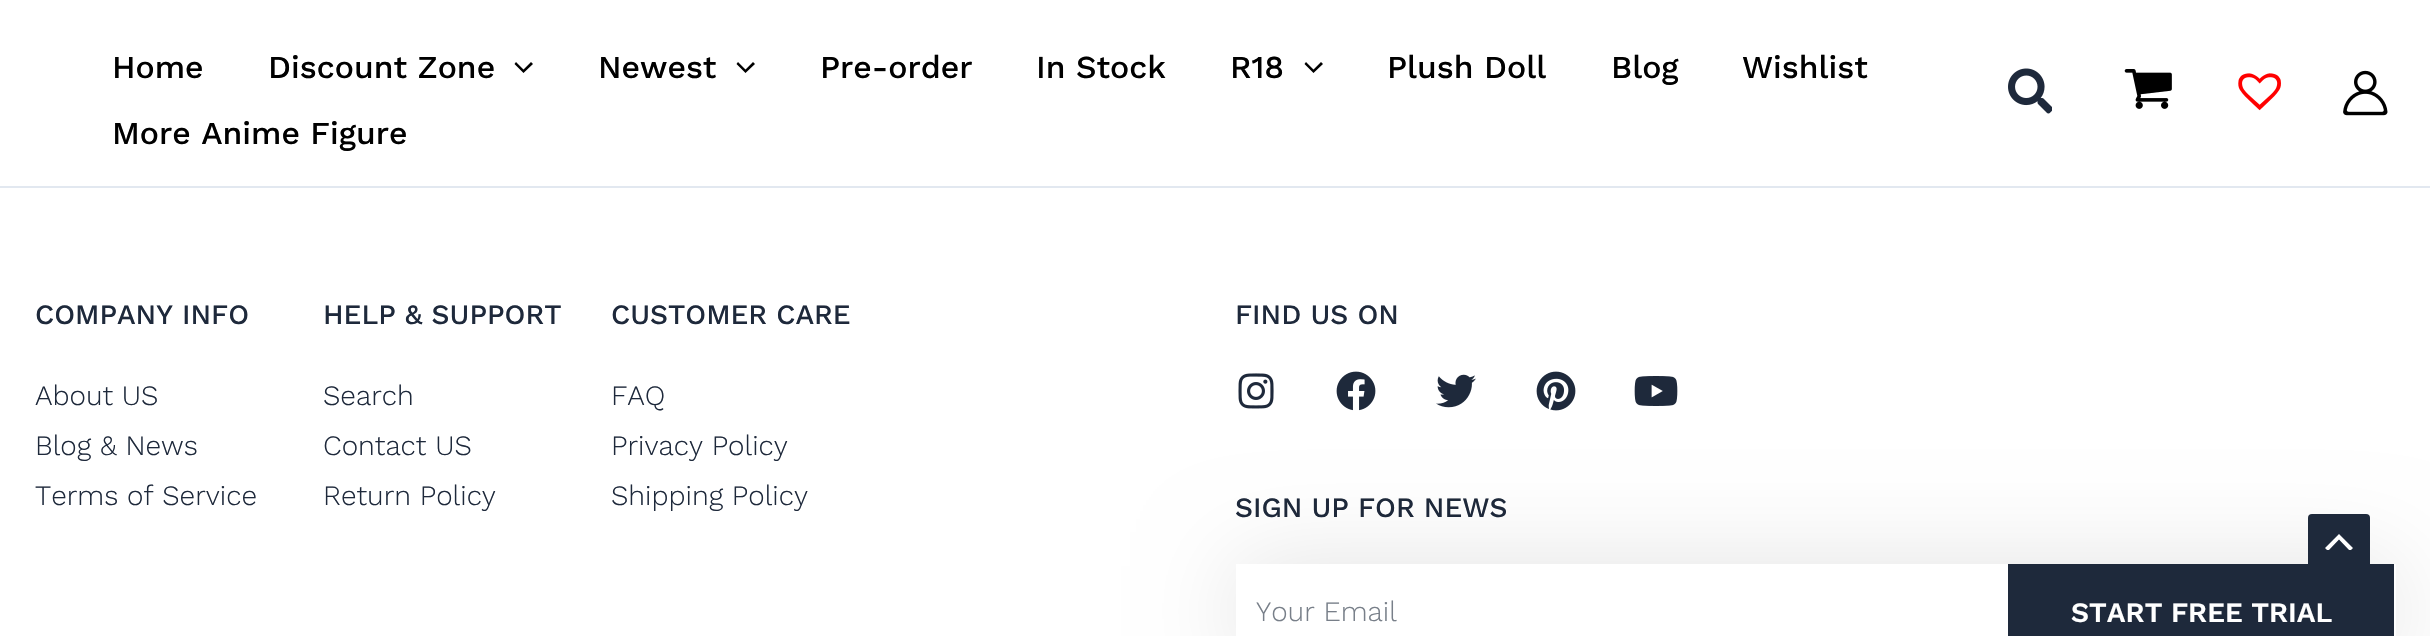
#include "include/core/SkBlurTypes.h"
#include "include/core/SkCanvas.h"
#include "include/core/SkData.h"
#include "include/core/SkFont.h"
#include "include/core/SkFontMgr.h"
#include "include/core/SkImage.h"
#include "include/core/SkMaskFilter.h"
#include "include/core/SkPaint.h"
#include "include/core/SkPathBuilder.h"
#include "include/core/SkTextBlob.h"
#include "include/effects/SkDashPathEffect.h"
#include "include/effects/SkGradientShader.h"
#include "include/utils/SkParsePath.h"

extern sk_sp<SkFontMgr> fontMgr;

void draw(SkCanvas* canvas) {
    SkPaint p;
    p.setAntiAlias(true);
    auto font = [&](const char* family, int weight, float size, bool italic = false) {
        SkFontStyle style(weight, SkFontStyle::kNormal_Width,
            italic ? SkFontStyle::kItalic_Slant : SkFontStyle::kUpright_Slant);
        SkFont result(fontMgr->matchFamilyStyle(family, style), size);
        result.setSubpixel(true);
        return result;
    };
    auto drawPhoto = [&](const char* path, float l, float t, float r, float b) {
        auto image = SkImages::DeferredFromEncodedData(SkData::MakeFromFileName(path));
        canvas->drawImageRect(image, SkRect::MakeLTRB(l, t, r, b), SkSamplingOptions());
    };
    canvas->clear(0xFFFFFFFF);
    p.setColor(0xFFE2E8F0);
    canvas->drawRect(SkRect::MakeLTRB(0, 186, 2430, 188), p);
    auto font1 = font("Work Sans", 500, 32);
    p.setColor(0xFF000000);
    canvas->drawString("Home", 112, 78, font1, p);
    canvas->drawString("Discount Zone", 268, 78, font1, p);
    canvas->drawPath(SkPathBuilder().moveTo(514.5f, 64).lineTo(523.5f, 73).lineTo(533, 64).lineTo(531, 62).lineTo(523.5f, 69.5f).lineTo(516, 62).close().detach(), p);
    canvas->drawString("Newest", 598, 78, font1, p);
    canvas->drawPath(SkPathBuilder().moveTo(736.5f, 64).lineTo(745.5f, 73).lineTo(755, 64).lineTo(753, 62).lineTo(745.5f, 69.5f).lineTo(738, 62).close().detach(), p);
    {
        const struct { const char* s; float x, y; } items[] = {
            {"Pre-order", 820, 78},
            {"In Stock", 1036, 78},
            {"R18", 1230, 78},
        };
        for (auto [s, x, y] : items) {
            canvas->drawString(s, x, y, font1, p);
        }
    }
    canvas->drawPath(SkPathBuilder().moveTo(1304.5f, 64).lineTo(1313.5f, 73).lineTo(1323, 64).lineTo(1321, 62).lineTo(1313.5f, 69.5f).lineTo(1306, 62).close().detach(), p);
    {
        const struct { const char* s; float x, y; } items[] = {
            {"Plush Doll", 1387, 78},
            {"Blog", 1611, 78},
            {"Wishlist", 1742, 78},
            {"More Anime Figure", 112, 144},
        };
        for (auto [s, x, y] : items) {
            canvas->drawString(s, x, y, font1, p);
        }
    }
    drawPhoto("media/1.png", 2008, 68, 2052, 114);
    drawPhoto("media/2.png", 2124, 69, 2172, 109);
    drawPhoto("media/3.png", 2238, 73, 2281, 111);
    drawPhoto("media/4.png", 2343, 70, 2388, 116);
    auto font2 = font("Work Sans", 500, 28);
    p.setColor(0xFF1E293B);
    canvas->drawString("COMPANY INFO", 35, 324, font2, p);
    auto font3 = font("Work Sans", 300, 28);
    {
        const struct { const char* s; float x, y; } items[] = {
            {"About US", 35, 405},
            {"Blog & News", 35, 455},
            {"Terms of Service", 35, 505},
        };
        for (auto [s, x, y] : items) {
            canvas->drawString(s, x, y, font3, p);
        }
    }
    canvas->drawString("HELP & SUPPORT", 323, 324, font2, p);
    {
        const struct { const char* s; float x, y; } items[] = {
            {"Search", 323, 405},
            {"Contact US", 323, 455},
            {"Return Policy", 323, 505},
        };
        for (auto [s, x, y] : items) {
            canvas->drawString(s, x, y, font3, p);
        }
    }
    canvas->drawString("CUSTOMER CARE", 611, 324, font2, p);
    {
        const struct { const char* s; float x, y; } items[] = {
            {"FAQ", 611, 405},
            {"Privacy Policy", 611, 455},
            {"Shipping Policy", 611, 505},
        };
        for (auto [s, x, y] : items) {
            canvas->drawString(s, x, y, font3, p);
        }
    }
    canvas->drawString("FIND US ON", 1235, 324, font2, p);
    drawPhoto("media/5.png", 1238, 373, 1274, 409);
    drawPhoto("media/6.png", 1336, 371, 1376, 411);
    drawPhoto("media/7.png", 1436, 374, 1476, 408);
    drawPhoto("media/8.png", 1536, 371, 1576, 411);
    drawPhoto("media/9.png", 1634, 376, 1678, 406);
    canvas->drawString("SIGN UP FOR NEWS", 1235, 517, font2, p);
    canvas->save();
    canvas->clipPath(SkPathBuilder(SkPathFillType::kEvenOdd).moveTo(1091, 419).lineTo(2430, 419).lineTo(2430, 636).lineTo(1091, 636).close().moveTo(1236, 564).lineTo(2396, 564).lineTo(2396, 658).lineTo(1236, 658).close().detach(), true);
    p.setColor(0x1C000000);
    p.setMaskFilter(SkMaskFilter::MakeBlur(kNormal_SkBlurStyle, 48));
    canvas->drawRect(SkRect::MakeLTRB(1236, 564, 2396, 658), p);
    p.setMaskFilter(nullptr);
    canvas->restore();
    p.setColor(0xFF787F89);
    canvas->drawString("Your Email", 1256, 621, font3, p);
    p.setColor(0xFF1E293B);
    canvas->drawRect(SkRect::MakeLTRB(2008, 564, 2394, 636), p);
    auto font4 = font("Work Sans", 600, 28);
    p.setColor(0xFFFFFFFF);
    canvas->drawString("START FREE TRIAL", 2071, 622, font4, p);
    p.setColor(0xFF1E293B);
    canvas->drawRoundRect(SkRect::MakeLTRB(2308, 514, 2370, 576), 4, 4, p);
    canvas->save();
    canvas->clipRect(SkRect::MakeLTRB(2314, 532, 2362, 550));
    p.setColor(0xFFFFFFFF);
    canvas->drawPath(SkPathBuilder().moveTo(2353, 548).lineTo(2339, 534).lineTo(2325, 548).lineTo(2328, 551).lineTo(2339, 539.5f).lineTo(2350, 551).close().detach(), p);
    canvas->restore();
}
